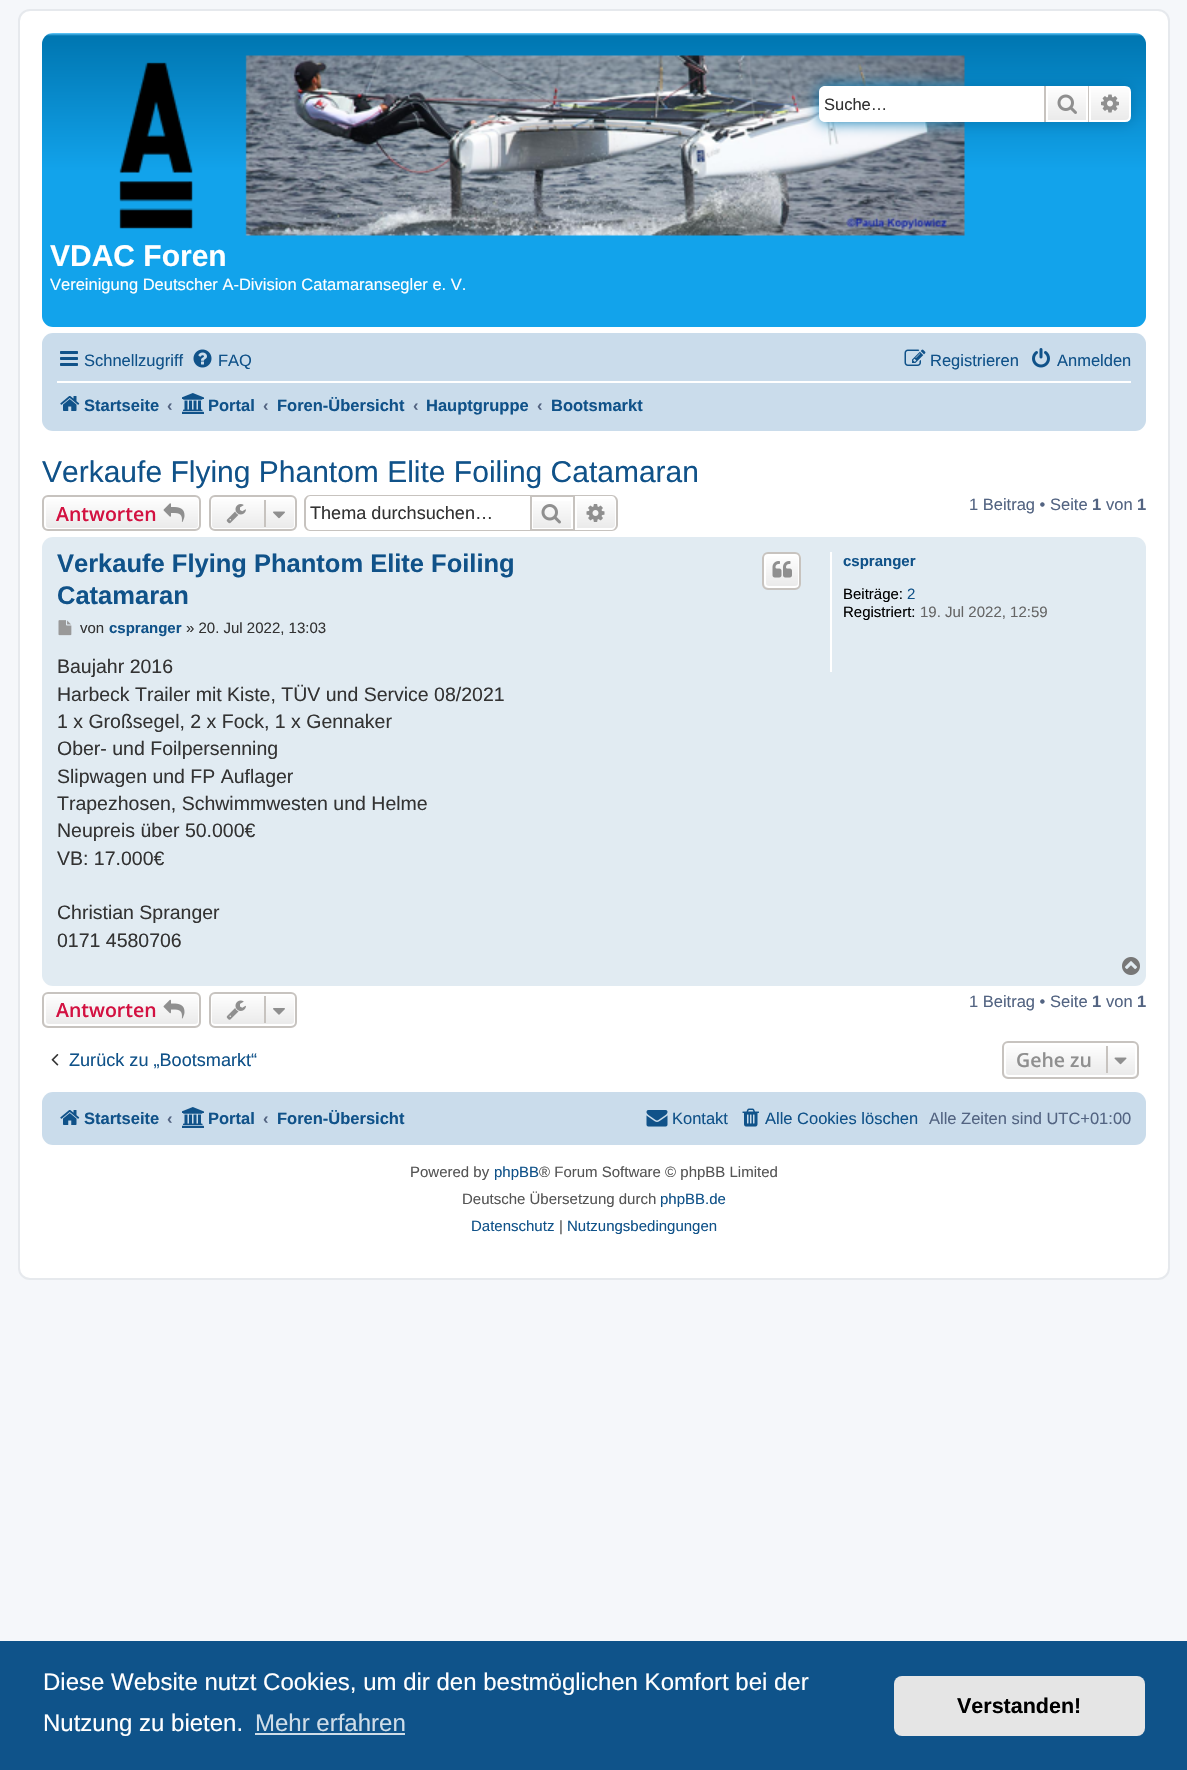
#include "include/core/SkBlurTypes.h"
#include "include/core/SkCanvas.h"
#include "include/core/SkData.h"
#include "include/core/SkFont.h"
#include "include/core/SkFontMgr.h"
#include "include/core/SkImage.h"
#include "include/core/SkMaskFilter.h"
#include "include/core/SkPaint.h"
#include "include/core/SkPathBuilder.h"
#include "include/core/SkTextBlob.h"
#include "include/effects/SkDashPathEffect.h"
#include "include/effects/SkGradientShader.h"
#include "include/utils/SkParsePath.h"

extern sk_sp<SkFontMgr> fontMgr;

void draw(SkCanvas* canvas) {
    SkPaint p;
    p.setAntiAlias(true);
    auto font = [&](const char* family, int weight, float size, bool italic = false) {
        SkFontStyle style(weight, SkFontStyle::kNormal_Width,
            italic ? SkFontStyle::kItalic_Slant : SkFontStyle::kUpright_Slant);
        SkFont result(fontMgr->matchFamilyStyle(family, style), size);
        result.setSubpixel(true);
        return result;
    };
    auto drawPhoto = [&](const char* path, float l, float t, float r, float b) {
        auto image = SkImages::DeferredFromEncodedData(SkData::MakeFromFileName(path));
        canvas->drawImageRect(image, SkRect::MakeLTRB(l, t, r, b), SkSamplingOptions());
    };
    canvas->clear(0xFFF5F7FA);
    p.setColor(0xFFFFFFFF);
    canvas->drawRoundRect(SkRect::MakeLTRB(19, 10, 1169, 1279), 11, 11, p);
    p.setStyle(SkPaint::kStroke_Style);
    p.setStrokeWidth(2);
    p.setColor(0xFFE6E9ED);
    canvas->drawRoundRect(SkRect::MakeLTRB(19, 10, 1169, 1279), 11, 11, p);
    p.setStyle(SkPaint::kFill_Style);
    {
        const SkColor colors[] = {0xFF6ACEFF, 0xFF0076B1, 0xFF12A3EB, 0xFF12A3EB};
        const float stops[] = {0, 0.01f, 0.47f, 1};
        const SkPoint ends[] = {{594, 33}, {594, 327}};
        p.setShader(SkGradientShader::MakeLinear(ends, colors, stops, 4, SkTileMode::kClamp));
        p.setAlpha(255);
    }
    canvas->drawRoundRect(SkRect::MakeLTRB(42, 33, 1146, 327), 11, 11, p);
    drawPhoto("media/3.png", 119, 55, 965, 236);
    p.setShader(nullptr);
    p.setColor(0xFF0075B0);
    p.setMaskFilter(SkMaskFilter::MakeBlur(kNormal_SkBlurStyle, 7.5f));
    canvas->drawRoundRect(SkRect::MakeLTRB(819, 86, 1131, 122), 6, 6, p);
    p.setMaskFilter(nullptr);
    p.setColor(0xFFFFFFFF);
    canvas->drawPath(SkPathBuilder().moveTo(825, 86).lineTo(1044, 86).lineTo(1044, 122).lineTo(825, 122).cubicTo(821.5f, 122, 819, 119.5f, 819, 116).lineTo(819, 92).cubicTo(819, 88.5f, 821.5f, 86, 825, 86).close().detach(), p);
    auto font1 = font("Liberation Sans", 400, 16.5f);
    p.setColor(0xFF333333);
    canvas->drawString("Suche…", 824, 110, font1, p);
    {
        const SkColor colors[] = {0xFFFFFFFF, 0xFFE9E9E9};
        const float stops[] = {0, 1};
        const SkPoint ends[] = {{1067, 86}, {1067, 122}};
        p.setShader(SkGradientShader::MakeLinear(ends, colors, stops, 2, SkTileMode::kClamp));
        p.setAlpha(255);
    }
    canvas->drawRect(SkRect::MakeLTRB(1048, 88, 1086, 120), p);
    p.setStyle(SkPaint::kStroke_Style);
    p.setShader(nullptr);
    p.setColor(0xFFFFFFFF);
    canvas->drawRect(SkRect::MakeLTRB(1047, 87, 1087, 121), p);
    p.setStyle(SkPaint::kFill_Style);
    p.setColor(0xFFC7C3BF);
    canvas->drawRect(SkRect::MakeLTRB(1088, 86, 1089, 122), p);
    canvas->drawRect(SkRect::MakeLTRB(1044, 86, 1046, 122), p);
    drawPhoto("media/1.png", 1057, 94, 1077, 114);
    {
        const SkColor colors[] = {0xFFFFFFFF, 0xFFE9E9E9};
        const float stops[] = {0, 1};
        const SkPoint ends[] = {{1110, 86}, {1110, 122}};
        p.setShader(SkGradientShader::MakeLinear(ends, colors, stops, 2, SkTileMode::kClamp));
        p.setAlpha(255);
    }
    canvas->drawPath(SkPathBuilder().moveTo(1090, 87).lineTo(1125, 87).cubicTo(1128, 87, 1130, 89, 1130, 92).lineTo(1130, 116).cubicTo(1130, 119, 1128, 121, 1125, 121).lineTo(1090, 121).close().detach(), p);
    p.setStyle(SkPaint::kStroke_Style);
    p.setShader(nullptr);
    p.setColor(0xFFFFFFFF);
    canvas->drawPath(SkPathBuilder().moveTo(1090, 87).lineTo(1125, 87).cubicTo(1128, 87, 1130, 89, 1130, 92).lineTo(1130, 116).cubicTo(1130, 119, 1128, 121, 1125, 121).lineTo(1090, 121).close().detach(), p);
    drawPhoto("media/2.png", 1101, 94, 1119, 113);
    auto font2 = font("Liberation Sans", 700, 30);
    p.setStyle(SkPaint::kFill_Style);
    canvas->drawString("VDAC Foren", 50, 266, font2, p);
    canvas->drawString("Vereinigung Deutscher A-Division Catamaransegler e. V.", 50, 290, font1, p);
    p.setColor(0xFFCADCEB);
    canvas->drawRoundRect(SkRect::MakeLTRB(42, 333, 1146, 431), 11, 11, p);
    drawPhoto("media/4.png", 60, 351, 78, 366);
    p.setColor(0xFF105289);
    canvas->drawString("Schnellzugriff", 84, 366, font1, p);
    drawPhoto("media/5.png", 193, 349, 212, 368);
    canvas->drawString("FAQ", 218, 366, font1, p);
    drawPhoto("media/6.png", 904, 349, 926, 366);
    canvas->drawString("Registrieren", 930, 366, font1, p);
    drawPhoto("media/7.png", 1032, 348, 1050, 368);
    canvas->drawString("Anmelden", 1057, 366, font1, p);
    p.setColor(0xFFFFFFFF);
    canvas->drawRect(SkRect::MakeLTRB(57, 381, 1131, 383), p);
    drawPhoto("media/8.png", 60, 396, 80, 411);
    auto font3 = font("Liberation Sans", 700, 16.5f);
    p.setColor(0xFF105289);
    canvas->drawString("Startseite", 84, 411, font3, p);
    p.setColor(0xFF536482);
    canvas->drawString("‹", 167, 411, font3, p);
    drawPhoto("media/9.png", 182, 393, 204, 414);
    p.setColor(0xFF105289);
    canvas->drawString("Portal", 208, 411, font3, p);
    p.setColor(0xFF536482);
    canvas->drawString("‹", 263, 411, font3, p);
    p.setColor(0xFF105289);
    canvas->drawString("Foren-Übersicht", 277, 411, font3, p);
    p.setColor(0xFF536482);
    canvas->drawString("‹", 413, 411, font3, p);
    p.setColor(0xFF105289);
    canvas->drawString("Hauptgruppe", 426, 411, font3, p);
    p.setColor(0xFF536482);
    canvas->drawString("‹", 537, 411, font3, p);
    p.setColor(0xFF105289);
    canvas->drawString("Bootsmarkt", 551, 411, font3, p);
    auto font4 = font("Liberation Sans", 400, 30);
    canvas->drawString("Verkaufe Flying Phantom Elite Foiling Catamaran", 42, 482, font4, p);
    canvas->save();
    canvas->clipPath(SkPathBuilder().moveTo(48, 495).lineTo(195, 495).cubicTo(198.5f, 495, 201, 497.5f, 201, 501).lineTo(201, 525).cubicTo(201, 528.5f, 198.5f, 531, 195, 531).lineTo(48, 531).cubicTo(44.5f, 531, 42, 528.5f, 42, 525).lineTo(42, 501).cubicTo(42, 497.5f, 44.5f, 495, 48, 495).close().detach(), true);
    {
        const SkColor colors[] = {0xFFFFFFFF, 0xFFE9E9E9};
        const float stops[] = {0, 1};
        const SkPoint ends[] = {{122, 497}, {122, 530}};
        p.setShader(SkGradientShader::MakeLinear(ends, colors, stops, 2, SkTileMode::kClamp));
        p.setAlpha(255);
    }
    canvas->drawRect(SkRect::MakeLTRB(42, 497, 201, 530), p);
    canvas->restore();
    p.setStyle(SkPaint::kStroke_Style);
    p.setShader(nullptr);
    p.setColor(0xFFFFFFFF);
    canvas->drawRoundRect(SkRect::MakeLTRB(45, 498, 199, 529), 4, 4, p);
    p.setColor(0xFFC7C3BF);
    canvas->drawRoundRect(SkRect::MakeLTRB(43, 496, 200, 530), 5, 5, p);
    auto font5 = font("Open Sans", 600, 19.5f);
    p.setStyle(SkPaint::kFill_Style);
    p.setColor(0xFFD31141);
    canvas->drawString("Antworten", 56, 521, font5, p);
    drawPhoto("media/10.png", 163, 503, 185, 522);
    canvas->save();
    canvas->clipPath(SkPathBuilder().moveTo(215, 495).lineTo(291, 495).cubicTo(294.5f, 495, 297, 497.5f, 297, 501).lineTo(297, 525).cubicTo(297, 528.5f, 294.5f, 531, 291, 531).lineTo(215, 531).cubicTo(211.5f, 531, 209, 528.5f, 209, 525).lineTo(209, 501).cubicTo(209, 497.5f, 211.5f, 495, 215, 495).close().detach(), true);
    {
        const SkColor colors[] = {0xFFFFFFFF, 0xFFE9E9E9};
        const float stops[] = {0, 1};
        const SkPoint ends[] = {{253, 497}, {253, 530}};
        p.setShader(SkGradientShader::MakeLinear(ends, colors, stops, 2, SkTileMode::kClamp));
        p.setAlpha(255);
    }
    canvas->drawRect(SkRect::MakeLTRB(209, 497, 297, 530), p);
    canvas->restore();
    p.setStyle(SkPaint::kStroke_Style);
    p.setShader(nullptr);
    p.setColor(0xFFFFFFFF);
    canvas->drawRoundRect(SkRect::MakeLTRB(211, 498, 295, 529), 4, 4, p);
    p.setColor(0xFFC7C3BF);
    canvas->drawRoundRect(SkRect::MakeLTRB(210, 496, 296, 530), 5, 5, p);
    drawPhoto("media/11.png", 226, 504, 246, 524);
    p.setStyle(SkPaint::kFill_Style);
    canvas->drawRect(SkRect::MakeLTRB(264, 500, 266, 527), p);
    drawPhoto("media/12.png", 273, 511, 285, 519);
    canvas->drawPath(SkPathBuilder(SkPathFillType::kEvenOdd).moveTo(310, 495).lineTo(530, 495).lineTo(530, 531).lineTo(310, 531).cubicTo(307, 531, 304, 528, 304, 525).lineTo(304, 501).cubicTo(304, 498, 307, 495, 310, 495).close().moveTo(310, 496).lineTo(530, 496).lineTo(530, 530).lineTo(310, 530).cubicTo(308, 530, 306, 527, 306, 525).lineTo(306, 501).cubicTo(306, 499, 308, 496, 310, 496).close().detach(), p);
    auto font6 = font("Liberation Sans", 400, 18.1f);
    p.setColor(0xFF333333);
    canvas->drawString("Thema durchsuchen…", 310, 519, font6, p);
    {
        const SkColor colors[] = {0xFFFFFFFF, 0xFFE9E9E9};
        const float stops[] = {0, 1};
        const SkPoint ends[] = {{552, 497}, {552, 530}};
        p.setShader(SkGradientShader::MakeLinear(ends, colors, stops, 2, SkTileMode::kClamp));
        p.setAlpha(255);
    }
    canvas->drawRect(SkRect::MakeLTRB(533, 501, 571, 528), p);
    p.setStyle(SkPaint::kStroke_Style);
    p.setShader(nullptr);
    p.setColor(0xFFC7C3BF);
    canvas->drawRect(SkRect::MakeLTRB(531, 496, 574, 530), p);
    drawPhoto("media/13.png", 541, 504, 561, 524);
    p.setStyle(SkPaint::kFill_Style);
    {
        const SkColor colors[] = {0xFFFFFFFF, 0xFFE9E9E9};
        const float stops[] = {0, 1};
        const SkPoint ends[] = {{596, 497}, {596, 530}};
        p.setShader(SkGradientShader::MakeLinear(ends, colors, stops, 2, SkTileMode::kClamp));
        p.setAlpha(255);
    }
    canvas->drawPath(SkPathBuilder().moveTo(576, 498).lineTo(612, 498).cubicTo(614, 498, 616, 500, 616, 502).lineTo(616, 525).cubicTo(616, 527, 614, 529, 612, 529).lineTo(576, 529).close().detach(), p);
    p.setStyle(SkPaint::kStroke_Style);
    p.setShader(nullptr);
    p.setColor(0xFFFFFFFF);
    canvas->drawPath(SkPathBuilder().moveTo(576, 498).lineTo(612, 498).cubicTo(614, 498, 616, 500, 616, 502).lineTo(616, 525).cubicTo(616, 527, 614, 529, 612, 529).lineTo(576, 529).close().detach(), p);
    p.setStyle(SkPaint::kFill_Style);
    p.setColor(0xFFC7C3BF);
    canvas->drawPath(SkPathBuilder(SkPathFillType::kEvenOdd).moveTo(574, 495).lineTo(612, 495).cubicTo(615, 495, 618, 498, 618, 501).lineTo(618, 525).cubicTo(618, 528, 615, 531, 612, 531).lineTo(574, 531).close().moveTo(574, 496).lineTo(612, 496).cubicTo(614, 496, 616, 499, 616, 501).lineTo(616, 525).cubicTo(616, 527, 614, 530, 612, 530).lineTo(574, 530).close().detach(), p);
    drawPhoto("media/14.png", 586, 504, 605, 522);
    p.setColor(0xFF536482);
    canvas->drawString("1 Beitrag • Seite", 969, 510, font1, p);
    canvas->drawString("1", 1092, 510, font3, p);
    canvas->drawString("von", 1106, 510, font1, p);
    canvas->drawString("1", 1137, 510, font3, p);
    p.setColor(0xFFE1EBF2);
    canvas->drawRoundRect(SkRect::MakeLTRB(42, 537, 1146, 986), 11, 11, p);
    auto font7 = font("Liberation Sans", 700, 25.5f);
    p.setColor(0xFF105289);
    canvas->drawString("Verkaufe Flying Phantom Elite Foiling", 57, 572, font7, p);
    canvas->drawString("Catamaran", 57, 604, font7, p);
    canvas->save();
    canvas->clipPath(SkPathBuilder().moveTo(768, 552).lineTo(795, 552).cubicTo(798.5f, 552, 801, 554.5f, 801, 558).lineTo(801, 584).cubicTo(801, 587.5f, 798.5f, 590, 795, 590).lineTo(768, 590).cubicTo(764.5f, 590, 762, 587.5f, 762, 584).lineTo(762, 558).cubicTo(762, 554.5f, 764.5f, 552, 768, 552).close().detach(), true);
    {
        const SkColor colors[] = {0xFFFFFFFF, 0xFFE9E9E9};
        const float stops[] = {0, 1};
        const SkPoint ends[] = {{782, 554}, {782, 588}};
        p.setShader(SkGradientShader::MakeLinear(ends, colors, stops, 2, SkTileMode::kClamp));
        p.setAlpha(255);
    }
    canvas->drawRect(SkRect::MakeLTRB(762, 554, 801, 588), p);
    canvas->restore();
    p.setStyle(SkPaint::kStroke_Style);
    p.setShader(nullptr);
    p.setColor(0xFFFFFFFF);
    canvas->drawRoundRect(SkRect::MakeLTRB(765, 555, 799, 587), 4, 4, p);
    p.setColor(0xFFC7C3BF);
    canvas->drawRoundRect(SkRect::MakeLTRB(763, 553, 800, 589), 5, 5, p);
    drawPhoto("media/15.png", 772, 561, 792, 578);
    drawPhoto("media/16.png", 58, 620, 72, 636);
    auto font8 = font("Liberation Sans", 400, 15);
    p.setStyle(SkPaint::kFill_Style);
    p.setColor(0xFF333333);
    canvas->drawString("von", 80, 633, font8, p);
    auto font9 = font("Liberation Sans", 700, 15);
    p.setColor(0xFF105289);
    canvas->drawString("cspranger", 109, 633, font9, p);
    p.setColor(0xFF333333);
    canvas->drawString("» 20. Jul 2022, 13:03", 186, 633, font8, p);
    auto font10 = font("Liberation Sans", 400, 19.5f);
    {
        const struct { const char* s; float x, y; } items[] = {
            {"Baujahr 2016", 57, 673},
            {"Harbeck Trailer mit Kiste, TÜV und Service 08/2021", 57, 701},
            {"1 x Großsegel, 2 x Fock, 1 x Gennaker", 57, 728},
            {"Ober- und Foilpersenning", 57, 755},
            {"Slipwagen und FP Auflager", 57, 783},
            {"Trapezhosen, Schwimmwesten und Helme", 57, 810},
            {"Neupreis über 50.000€", 57, 837},
            {"VB: 17.000€", 57, 865},
            {"Christian Spranger", 57, 919},
            {"0171 4580706", 57, 947},
        };
        for (auto [s, x, y] : items) {
            canvas->drawString(s, x, y, font10, p);
        }
    }
    p.setColor(0xFFFFFFFF);
    canvas->drawRect(SkRect::MakeLTRB(830, 552, 832, 672), p);
    p.setColor(0xFF105289);
    canvas->drawString("cspranger", 843, 566, font9, p);
    p.setColor(0xFF000000);
    canvas->drawString("Beiträge:", 843, 599, font8, p);
    p.setColor(0xFF105289);
    canvas->drawString("2", 907, 599, font8, p);
    p.setColor(0xFF000000);
    canvas->drawString("Registriert:", 843, 617, font8, p);
    p.setColor(0xFF666666);
    canvas->drawString("19. Jul 2022, 12:59", 920, 617, font8, p);
    drawPhoto("media/17.png", 1122, 957, 1140, 975);
    canvas->save();
    canvas->clipPath(SkPathBuilder().moveTo(48, 992).lineTo(195, 992).cubicTo(198.5f, 992, 201, 994.5f, 201, 998).lineTo(201, 1022).cubicTo(201, 1025.5f, 198.5f, 1028, 195, 1028).lineTo(48, 1028).cubicTo(44.5f, 1028, 42, 1025.5f, 42, 1022).lineTo(42, 998).cubicTo(42, 994.5f, 44.5f, 992, 48, 992).close().detach(), true);
    {
        const SkColor colors[] = {0xFFFFFFFF, 0xFFE9E9E9};
        const float stops[] = {0, 1};
        const SkPoint ends[] = {{122, 993}, {122, 1026}};
        p.setShader(SkGradientShader::MakeLinear(ends, colors, stops, 2, SkTileMode::kClamp));
        p.setAlpha(255);
    }
    canvas->drawRect(SkRect::MakeLTRB(42, 993, 201, 1026), p);
    canvas->restore();
    p.setStyle(SkPaint::kStroke_Style);
    p.setShader(nullptr);
    p.setColor(0xFFFFFFFF);
    canvas->drawRoundRect(SkRect::MakeLTRB(45, 994, 199, 1025), 4, 4, p);
    p.setColor(0xFFC7C3BF);
    canvas->drawRoundRect(SkRect::MakeLTRB(43, 993, 200, 1027), 5, 5, p);
    p.setStyle(SkPaint::kFill_Style);
    p.setColor(0xFFD31141);
    canvas->drawString("Antworten", 56, 1017, font5, p);
    drawPhoto("media/18.png", 163, 999, 185, 1019);
    canvas->save();
    canvas->clipPath(SkPathBuilder().moveTo(215, 992).lineTo(291, 992).cubicTo(294.5f, 992, 297, 994.5f, 297, 998).lineTo(297, 1022).cubicTo(297, 1025.5f, 294.5f, 1028, 291, 1028).lineTo(215, 1028).cubicTo(211.5f, 1028, 209, 1025.5f, 209, 1022).lineTo(209, 998).cubicTo(209, 994.5f, 211.5f, 992, 215, 992).close().detach(), true);
    {
        const SkColor colors[] = {0xFFFFFFFF, 0xFFE9E9E9};
        const float stops[] = {0, 1};
        const SkPoint ends[] = {{253, 993}, {253, 1026}};
        p.setShader(SkGradientShader::MakeLinear(ends, colors, stops, 2, SkTileMode::kClamp));
        p.setAlpha(255);
    }
    canvas->drawRect(SkRect::MakeLTRB(209, 993, 297, 1026), p);
    canvas->restore();
    p.setStyle(SkPaint::kStroke_Style);
    p.setShader(nullptr);
    p.setColor(0xFFFFFFFF);
    canvas->drawRoundRect(SkRect::MakeLTRB(211, 994, 295, 1025), 4, 4, p);
    p.setColor(0xFFC7C3BF);
    canvas->drawRoundRect(SkRect::MakeLTRB(210, 993, 296, 1027), 5, 5, p);
    drawPhoto("media/19.png", 226, 1000, 246, 1020);
    p.setStyle(SkPaint::kFill_Style);
    canvas->drawRect(SkRect::MakeLTRB(264, 996, 266, 1023), p);
    drawPhoto("media/20.png", 273, 1008, 285, 1015);
    p.setColor(0xFF536482);
    canvas->drawString("1 Beitrag • Seite", 969, 1007, font1, p);
    canvas->drawString("1", 1092, 1007, font3, p);
    canvas->drawString("von", 1106, 1007, font1, p);
    canvas->drawString("1", 1137, 1007, font3, p);
    drawPhoto("media/21.png", 51, 1054, 59, 1066);
    p.setColor(0xFF105289);
    canvas->drawString("Zurück zu „Bootsmarkt“", 69, 1066, font6, p);
    canvas->save();
    canvas->clipPath(SkPathBuilder().moveTo(1008, 1041).lineTo(1133, 1041).cubicTo(1136.5f, 1041, 1139, 1043.5f, 1139, 1047).lineTo(1139, 1073).cubicTo(1139, 1076.5f, 1136.5f, 1079, 1133, 1079).lineTo(1008, 1079).cubicTo(1004.5f, 1079, 1002, 1076.5f, 1002, 1073).lineTo(1002, 1047).cubicTo(1002, 1043.5f, 1004.5f, 1041, 1008, 1041).close().detach(), true);
    {
        const SkColor colors[] = {0xFFFFFFFF, 0xFFE9E9E9};
        const float stops[] = {0, 1};
        const SkPoint ends[] = {{1070, 1043}, {1070, 1077}};
        p.setShader(SkGradientShader::MakeLinear(ends, colors, stops, 2, SkTileMode::kClamp));
        p.setAlpha(255);
    }
    canvas->drawRect(SkRect::MakeLTRB(1002, 1043, 1139, 1077), p);
    canvas->restore();
    p.setStyle(SkPaint::kStroke_Style);
    p.setShader(nullptr);
    p.setColor(0xFFFFFFFF);
    canvas->drawRoundRect(SkRect::MakeLTRB(1005, 1044, 1136, 1076), 4, 4, p);
    p.setColor(0xFFC7C3BF);
    canvas->drawRoundRect(SkRect::MakeLTRB(1003, 1042, 1138, 1078), 5, 5, p);
    p.setStyle(SkPaint::kFill_Style);
    p.setColor(0xFF8F8F8F);
    canvas->drawString("Gehe zu", 1016, 1067, font5, p);
    p.setColor(0xFFC7C3BF);
    canvas->drawRect(SkRect::MakeLTRB(1106, 1046, 1108, 1073), p);
    drawPhoto("media/22.png", 1114, 1057, 1127, 1065);
    p.setColor(0xFFCADCEB);
    canvas->drawRoundRect(SkRect::MakeLTRB(42, 1092, 1146, 1145), 11, 11, p);
    drawPhoto("media/8.png", 60, 1110, 80, 1125);
    p.setColor(0xFF105289);
    canvas->drawString("Startseite", 84, 1124, font3, p);
    p.setColor(0xFF536482);
    canvas->drawString("‹", 167, 1124, font3, p);
    drawPhoto("media/9.png", 182, 1107, 204, 1128);
    p.setColor(0xFF105289);
    canvas->drawString("Portal", 208, 1124, font3, p);
    p.setColor(0xFF536482);
    canvas->drawString("‹", 263, 1124, font3, p);
    p.setColor(0xFF105289);
    canvas->drawString("Foren-Übersicht", 277, 1124, font3, p);
    drawPhoto("media/23.png", 646, 1110, 668, 1127);
    canvas->drawString("Kontakt", 672, 1124, font1, p);
    drawPhoto("media/24.png", 742, 1108, 759, 1127);
    canvas->drawString("Alle Cookies löschen", 765, 1124, font1, p);
    p.setColor(0xFF536482);
    canvas->drawString("Alle Zeiten sind UTC+01:00", 929, 1124, font1, p);
    p.setColor(0xFF555555);
    canvas->drawString("Powered by", 410, 1177, font8, p);
    p.setColor(0xFF105289);
    canvas->drawString("phpBB", 494, 1177, font8, p);
    p.setColor(0xFF555555);
    canvas->drawString("® Forum Software © phpBB Limited", 539, 1177, font8, p);
    canvas->drawString("Deutsche Übersetzung durch", 462, 1204, font8, p);
    p.setColor(0xFF105289);
    canvas->drawString("phpBB.de", 660, 1204, font8, p);
    canvas->drawString("Datenschutz", 471, 1231, font8, p);
    p.setColor(0xFF555555);
    canvas->drawString("|", 559, 1231, font8, p);
    p.setColor(0xFF105289);
    canvas->drawString("Nutzungsbedingungen", 567, 1231, font8, p);
    p.setColor(0xFF0F538A);
    canvas->drawRect(SkRect::MakeLTRB(0, 1641, 1187, 1770), p);
    auto font11 = font("Liberation Sans", 400, 24);
    p.setColor(0xFFFFFFFF);
    canvas->drawString("Diese Website nutzt Cookies, um dir den bestmöglichen Komfort bei der", 43, 1690, font11, p);
    canvas->drawString("Nutzung zu bieten.", 43, 1731, font11, p);
    p.setColor(0xFFCFDDE8);
    canvas->drawString("Mehr erfahren", 255, 1731, font11, p);
    canvas->drawRect(SkRect::MakeLTRB(255, 1733, 405, 1735), p);
    p.setColor(0xFFE5E5E5);
    canvas->drawRoundRect(SkRect::MakeLTRB(894, 1676, 1145, 1736), 8, 8, p);
    auto font12 = font("Liberation Sans", 700, 21.5f);
    p.setColor(0xFF000000);
    canvas->drawString("Verstanden!", 957, 1713, font12, p);
}
